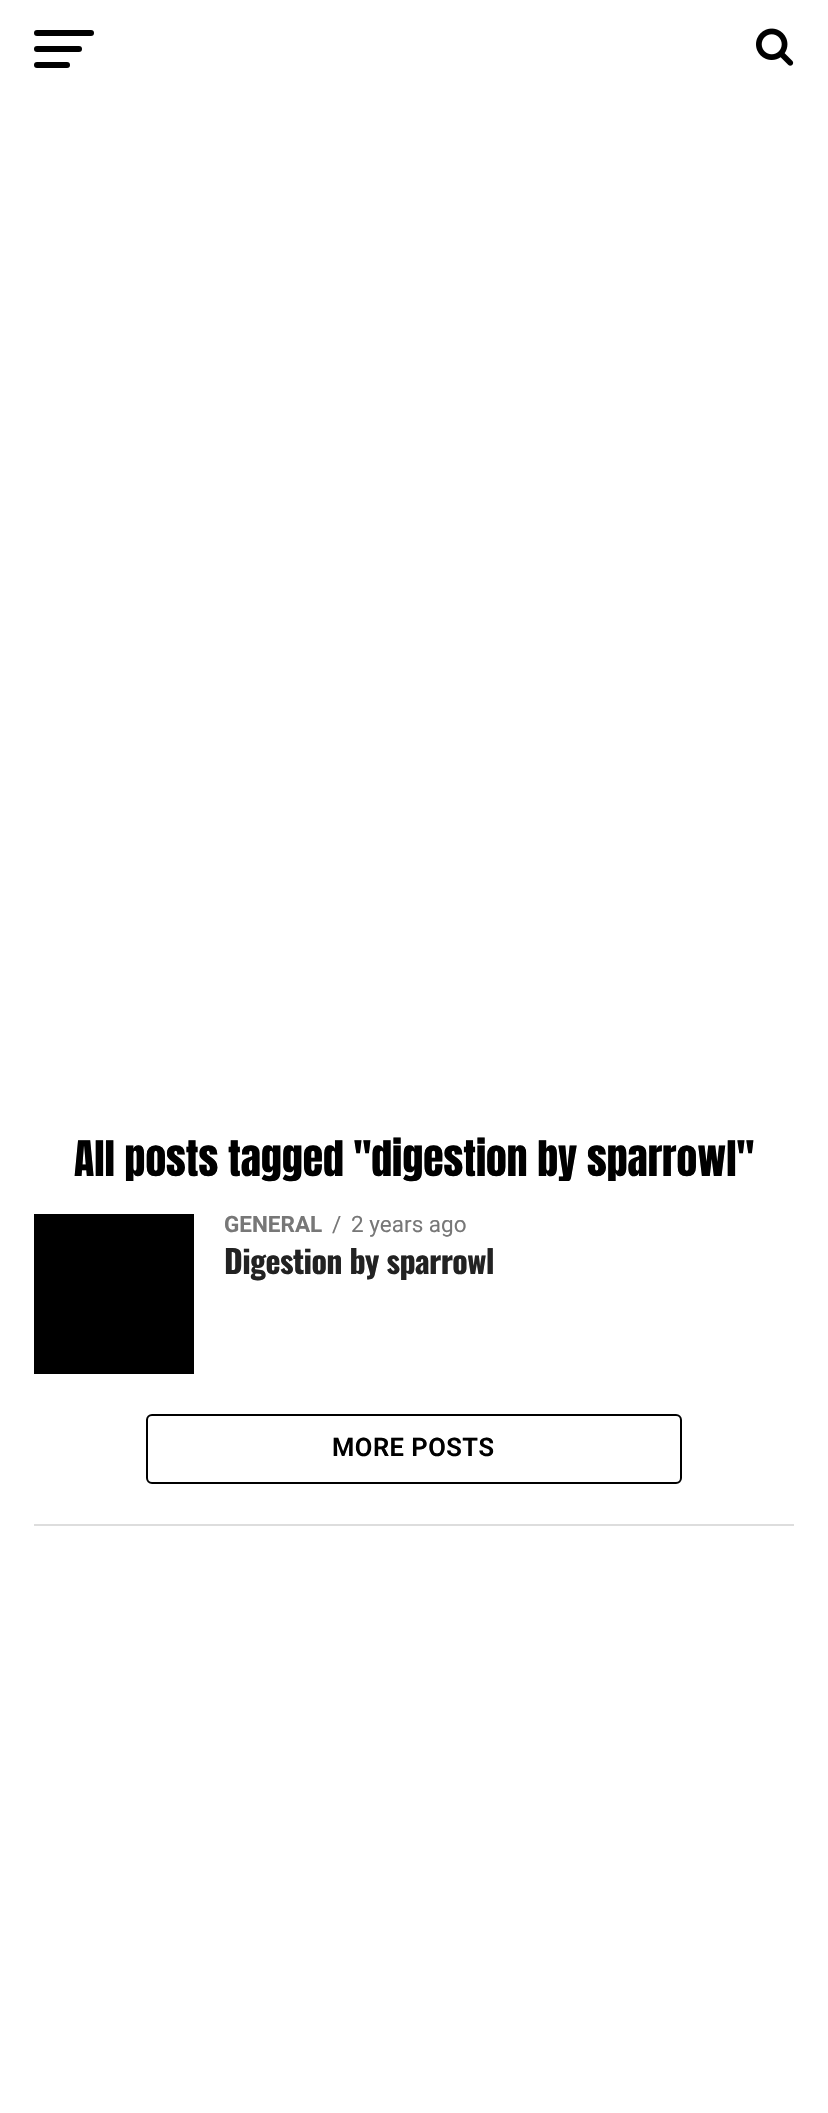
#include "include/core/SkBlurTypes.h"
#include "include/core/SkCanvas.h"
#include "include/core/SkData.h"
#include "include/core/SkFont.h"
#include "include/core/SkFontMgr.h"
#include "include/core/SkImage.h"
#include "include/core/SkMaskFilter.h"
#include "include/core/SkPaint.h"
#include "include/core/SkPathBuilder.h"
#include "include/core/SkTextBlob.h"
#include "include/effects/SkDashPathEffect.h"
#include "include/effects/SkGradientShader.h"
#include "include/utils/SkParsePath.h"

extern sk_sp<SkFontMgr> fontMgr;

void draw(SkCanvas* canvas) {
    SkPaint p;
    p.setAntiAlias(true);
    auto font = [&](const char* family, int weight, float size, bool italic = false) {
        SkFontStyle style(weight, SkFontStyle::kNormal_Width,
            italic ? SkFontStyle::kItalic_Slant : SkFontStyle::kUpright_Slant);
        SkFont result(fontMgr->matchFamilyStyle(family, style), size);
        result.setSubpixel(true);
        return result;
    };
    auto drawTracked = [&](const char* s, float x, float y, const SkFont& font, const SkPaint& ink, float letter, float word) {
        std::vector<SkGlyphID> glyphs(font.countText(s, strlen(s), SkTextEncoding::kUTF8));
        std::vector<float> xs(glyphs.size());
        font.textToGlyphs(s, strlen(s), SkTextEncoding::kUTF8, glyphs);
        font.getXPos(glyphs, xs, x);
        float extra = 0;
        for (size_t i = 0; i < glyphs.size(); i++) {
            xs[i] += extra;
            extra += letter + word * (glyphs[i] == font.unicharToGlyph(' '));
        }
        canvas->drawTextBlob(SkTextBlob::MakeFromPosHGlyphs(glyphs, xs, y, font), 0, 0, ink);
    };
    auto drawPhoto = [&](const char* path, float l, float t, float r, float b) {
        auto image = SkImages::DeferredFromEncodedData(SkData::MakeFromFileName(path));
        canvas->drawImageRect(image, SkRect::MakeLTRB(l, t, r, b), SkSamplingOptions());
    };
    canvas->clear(0xFFFFFFFF);
    p.setColor(0xFF000000);
    canvas->drawRoundRect(SkRect::MakeLTRB(34, 30, 94, 36), 3, 3, p);
    canvas->drawRoundRect(SkRect::MakeLTRB(34, 46, 82, 52), 3, 3, p);
    canvas->drawRoundRect(SkRect::MakeLTRB(34, 62, 70, 68), 3, 3, p);
    drawPhoto("media/1.png", 756, 28, 794, 66);
    auto font1 = font("Anton", 400, 41.6f);
    canvas->drawString("All posts tagged \"digestion by sparrowl\"", 74, 1176, font1, p);
    canvas->drawRect(SkRect::MakeLTRB(34, 1214, 194, 1374), p);
    auto font2 = font("Roboto", 700, 22.5f);
    p.setColor(0xFF777777);
    canvas->drawString("GENERAL", 224, 1232, font2, p);
    auto font3 = font("Roboto", 400, 22.5f);
    canvas->drawString("/", 332, 1232, font3, p);
    canvas->drawString("2 years ago", 351, 1232, font3, p);
    auto font4 = font("Oswald", 700, 32);
    p.setColor(0xFF222222);
    drawTracked("Digestion by sparrowl", 224, 1274, font4, p, -0.6f, 0);
    p.setStyle(SkPaint::kStroke_Style);
    p.setStrokeWidth(2);
    p.setColor(0xFF000000);
    canvas->drawRoundRect(SkRect::MakeLTRB(147, 1415, 681, 1483), 5, 5, p);
    auto font5 = font("Roboto", 600, 25.5f);
    p.setStyle(SkPaint::kFill_Style);
    drawTracked("MORE POSTS", 332, 1456, font5, p, 0.5f, 0);
    p.setColor(0xFFDDDDDD);
    canvas->drawRect(SkRect::MakeLTRB(34, 1524, 794, 1526), p);
}
